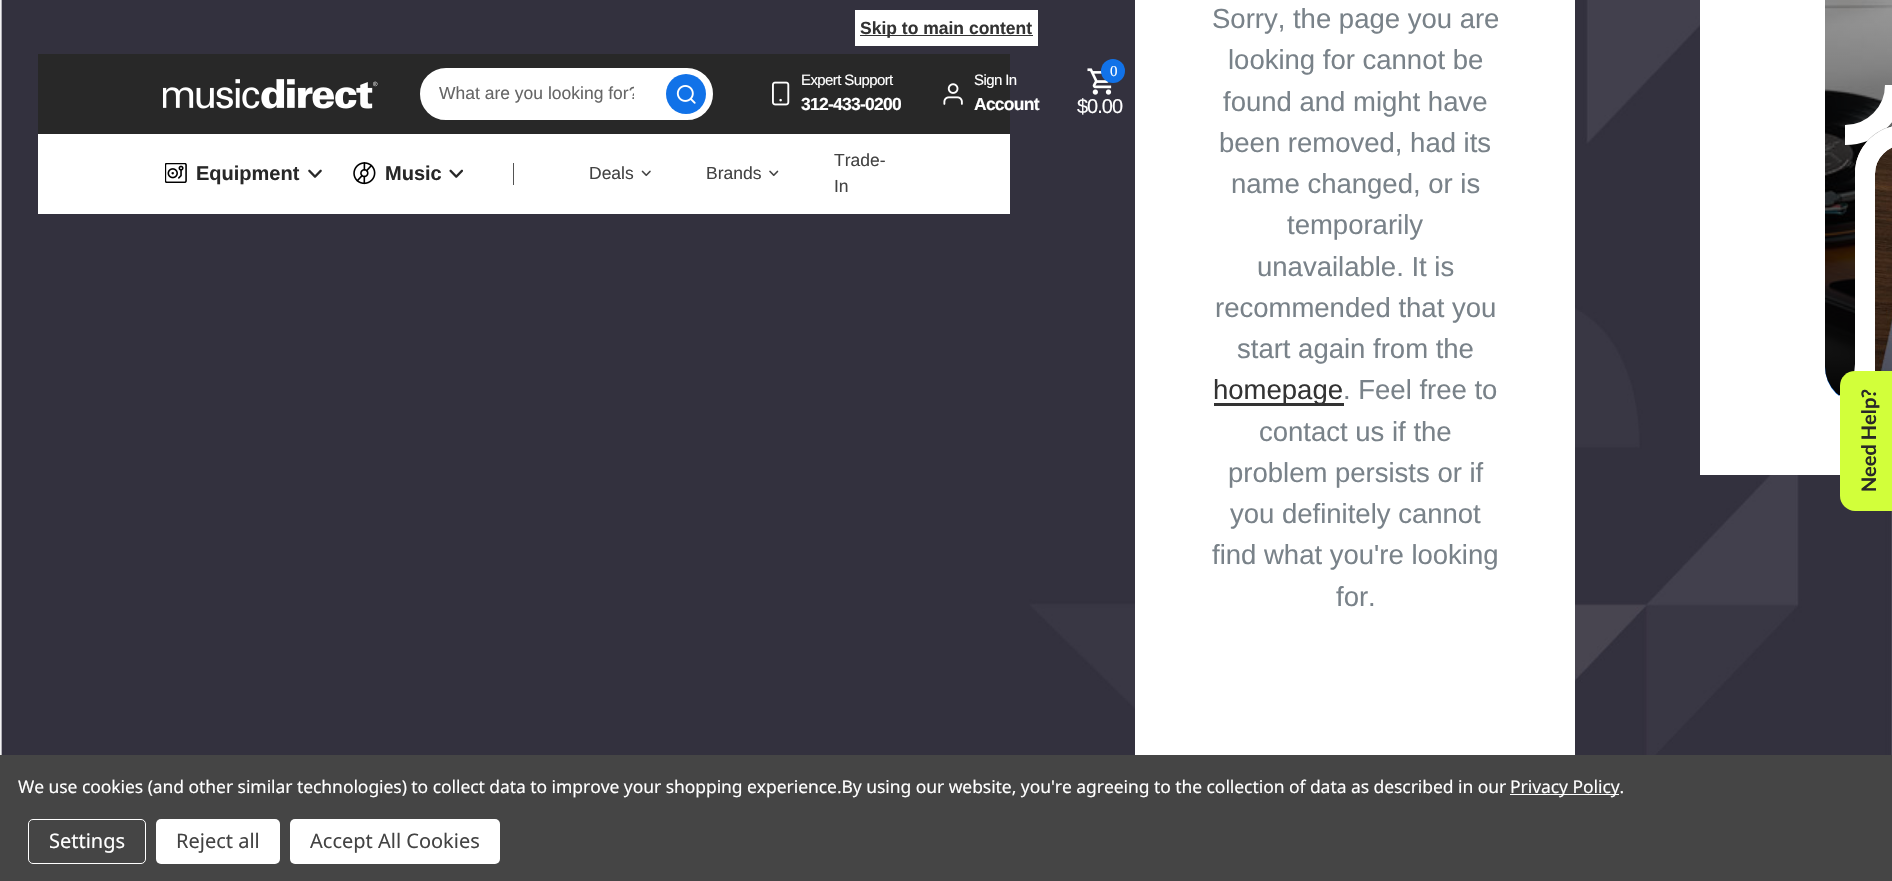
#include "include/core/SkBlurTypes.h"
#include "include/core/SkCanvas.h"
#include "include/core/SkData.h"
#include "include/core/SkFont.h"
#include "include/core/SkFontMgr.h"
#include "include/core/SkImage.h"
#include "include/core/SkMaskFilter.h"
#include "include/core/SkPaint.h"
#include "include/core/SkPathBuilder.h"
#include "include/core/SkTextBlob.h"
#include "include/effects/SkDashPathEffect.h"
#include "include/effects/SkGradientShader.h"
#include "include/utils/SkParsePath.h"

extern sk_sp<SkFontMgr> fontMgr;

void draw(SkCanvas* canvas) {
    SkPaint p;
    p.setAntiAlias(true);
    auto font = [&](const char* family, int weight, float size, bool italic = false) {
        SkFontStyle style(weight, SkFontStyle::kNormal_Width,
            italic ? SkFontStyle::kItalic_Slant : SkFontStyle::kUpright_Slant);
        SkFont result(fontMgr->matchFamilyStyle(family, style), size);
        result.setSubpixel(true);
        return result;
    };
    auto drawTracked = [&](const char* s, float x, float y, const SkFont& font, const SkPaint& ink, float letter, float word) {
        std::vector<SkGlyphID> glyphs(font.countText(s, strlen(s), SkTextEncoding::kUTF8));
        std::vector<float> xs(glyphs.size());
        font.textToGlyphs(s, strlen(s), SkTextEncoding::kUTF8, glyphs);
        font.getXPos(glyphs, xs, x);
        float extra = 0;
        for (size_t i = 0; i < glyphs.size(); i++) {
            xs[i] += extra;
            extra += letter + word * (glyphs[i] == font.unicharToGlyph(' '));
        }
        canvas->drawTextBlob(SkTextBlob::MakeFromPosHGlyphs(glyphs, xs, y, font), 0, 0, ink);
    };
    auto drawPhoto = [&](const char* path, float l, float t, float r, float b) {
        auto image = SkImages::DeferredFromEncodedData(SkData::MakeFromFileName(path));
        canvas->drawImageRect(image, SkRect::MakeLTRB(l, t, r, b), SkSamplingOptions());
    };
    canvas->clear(0xFFFFFFFF);
    drawPhoto("media/1.png", 0, 0, 1892, 755);
    p.setColor(0xFFFFFFFF);
    canvas->drawRect(SkRect::MakeLTRB(855, 10, 1038, 46), p);
    p.setColor(0xFF333333);
    canvas->drawRect(SkRect::MakeLTRB(860, 35, 1033, 36), p);
    auto font1 = font("Liberation Sans", 700, 17.5f);
    canvas->drawString("Skip to main content", 860, 34, font1, p);
    p.setColor(0xFFFFFFFF);
    canvas->drawRect(SkRect::MakeLTRB(1135, 0, 1575, 755), p);
    auto font2 = font("Liberation Sans", 400, 27.5f);
    p.setColor(0xFF798289);
    {
        const struct { const char* s; float x, y; } items[] = {
            {"Sorry, the page you are", 1212, 28},
            {"looking for cannot be", 1228, 69},
            {"found and might have", 1223, 111},
            {"been removed, had its", 1219, 152},
            {"name changed, or is", 1231, 193},
            {"temporarily", 1287, 234},
            {"unavailable. It is", 1257, 276},
            {"recommended that you", 1215, 317},
            {"start again from the", 1237, 358},
        };
        for (auto [s, x, y] : items) {
            canvas->drawString(s, x, y, font2, p);
        }
    }
    p.setColor(0xFF333333);
    canvas->drawRect(SkRect::MakeLTRB(1214, 403, 1344, 406), p);
    canvas->drawString("homepage", 1213, 399, font2, p);
    p.setColor(0xFF798289);
    {
        const struct { const char* s; float x, y; } items[] = {
            {". Feel free to", 1343, 399},
            {"contact us if the", 1259, 441},
            {"problem persists or if", 1228, 482},
            {"you definitely cannot", 1230, 523},
            {"find what you're looking", 1212, 564},
            {"for.", 1336, 606},
        };
        for (auto [s, x, y] : items) {
            canvas->drawString(s, x, y, font2, p);
        }
    }
    p.setColor(0xFF1172E8);
    canvas->drawRoundRect(SkRect::MakeLTRB(1825, -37, 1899, 404), 37, 37, p);
    drawPhoto("media/2.png", 1825, 0, 1892, 396);
    canvas->save();
    canvas->clipRect(SkRect::MakeLTRB(1845, 85, 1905, 145));
    p.setStyle(SkPaint::kStroke_Style);
    p.setStrokeWidth(20);
    p.setColor(0xFFFFFFFF);
    canvas->drawCircle(1845, 85, 50, p);
    canvas->restore();
    drawPhoto("media/3.png", 1855, 126, 1892, 371);
    canvas->drawPath(SkPathBuilder().moveTo(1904, 135).lineTo(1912, 135).cubicTo(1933.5f, 135, 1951, 152.5f, 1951, 174).lineTo(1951, 414).lineTo(1865, 414).lineTo(1865, 174).cubicTo(1865, 152.5f, 1882.5f, 135, 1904, 135).close().detach(), p);
    canvas->drawRoundRect(SkRect::MakeLTRB(1865, 135, 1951, 414), 39, 39, p);
    canvas->save();
    canvas->clipRect(SkRect::MakeLTRB(1815, 364, 1875, 424));
    canvas->drawCircle(1815, 364, 50, p);
    canvas->restore();
    p.setStyle(SkPaint::kFill_Style);
    canvas->drawRect(SkRect::MakeLTRB(38, 134, 1010, 214), p);
    p.setColor(0xFF282828);
    canvas->drawRect(SkRect::MakeLTRB(38, 54, 1010, 134), p);
    drawPhoto("media/4.png", 163, 79, 378, 109);
    p.setColor(0xFFFFFFFF);
    canvas->drawRoundRect(SkRect::MakeLTRB(421.5f, 69.5f, 711.5f, 118.5f), 24.5f, 24.5f, p);
    p.setStyle(SkPaint::kStroke_Style);
    p.setStrokeWidth(3);
    canvas->drawRoundRect(SkRect::MakeLTRB(421.5f, 69.5f, 711.5f, 118.5f), 24.5f, 24.5f, p);
    canvas->save();
    canvas->clipRect(SkRect::MakeLTRB(439, 84, 634, 104));
    auto font3 = font("Liberation Sans", 400, 17.5f);
    p.setStyle(SkPaint::kFill_Style);
    p.setColor(0xFF666666);
    canvas->drawString("What are you looking for?", 439, 99, font3, p);
    canvas->restore();
    p.setColor(0xFF1172E8);
    canvas->drawCircle(686, 94, 20, p);
    drawPhoto("media/5.png", 676, 85, 696, 104);
    drawPhoto("media/6.png", 772, 81, 790, 106);
    auto font4 = font("Liberation Sans", 400, 15);
    p.setColor(0xFFFFFFFF);
    drawTracked("Expert Support", 801, 85, font4, p, -0.6f, 0);
    drawTracked("312-433-0200", 801, 110, font1, p, -0.75f, 0);
    drawPhoto("media/7.png", 943, 83, 963, 105);
    drawTracked("Sign In", 974, 85, font4, p, -0.6f, 0);
    drawTracked("Account", 974, 110, font1, p, -0.75f, 0);
    drawPhoto("media/8.png", 1087, 68, 1112, 95);
    p.setColor(0xFF1172E8);
    canvas->drawCircle(1113, 71, 12, p);
    auto font5 = font("Liberation Serif", 400, 15);
    p.setColor(0xFFFFFFFF);
    drawTracked("0", 1110, 76, font5, p, -0.6f, 0);
    auto font6 = font("Liberation Sans", 400, 20);
    drawTracked("$0.00", 1077, 113, font6, p, -1, 0);
    drawPhoto("media/9.png", 165, 163, 187, 183);
    auto font7 = font("Liberation Sans", 700, 20);
    p.setColor(0xFF282828);
    canvas->drawString("Equipment", 196, 180, font7, p);
    drawPhoto("media/10.png", 308, 169, 322, 178);
    drawPhoto("media/11.png", 353, 162, 376, 185);
    canvas->drawString("Music", 385, 180, font7, p);
    drawPhoto("media/12.png", 449, 169, 463, 178);
    p.setColor(0xFF535353);
    canvas->drawRect(SkRect::MakeLTRB(513, 163, 514, 185), p);
    p.setColor(0xFF434343);
    canvas->drawString("Deals", 589, 179, font3, p);
    drawPhoto("media/13.png", 641, 170, 651, 177);
    canvas->drawString("Brands", 706, 179, font3, p);
    drawPhoto("media/14.png", 769, 170, 779, 177);
    canvas->drawString("Trade-", 834, 166, font3, p);
    canvas->drawString("In", 834, 192, font3, p);
    p.setColor(0xFFD2FF3A);
    canvas->drawPath(SkPathBuilder().moveTo(1840, 496).lineTo(1840, 386).cubicTo(1840, 377, 1847, 371, 1855, 371).lineTo(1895, 371).lineTo(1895, 511).lineTo(1855, 511).cubicTo(1847, 511, 1840, 504, 1840, 496).close().detach(), p);
    auto font8 = font("Lato", 700, 20);
    p.setColor(0xFF282828);
    canvas->save();
    canvas->rotate(-90, 1876, 492);
    canvas->drawString("Need Help?", 1876, 492, font8, p);
    canvas->restore();
    p.setColor(0xFF454545);
    canvas->drawRect(SkRect::MakeLTRB(0, 755, 1892, 881), p);
    auto font9 = font("Noto Sans", 400, 17.5f);
    p.setColor(0xFFFFFFFF);
    drawTracked("We use cookies (and other similar technologies) to collect data to improve your shopping experience.By using our website, you're agreeing to the collection of data as described in our", 18, 793, font9, p, -0.06f, 0);
    canvas->drawRect(SkRect::MakeLTRB(1510, 794, 1619, 795), p);
    drawTracked("Privacy Policy.", 1510, 793, font9, p, -0.06f, 0);
    p.setStyle(SkPaint::kStroke_Style);
    p.setStrokeWidth(1);
    canvas->drawRoundRect(SkRect::MakeLTRB(28.5f, 819.5f, 145.5f, 863.5f), 4.5f, 4.5f, p);
    auto font10 = font("Noto Sans", 400, 20);
    p.setStyle(SkPaint::kFill_Style);
    canvas->drawString("Settings", 49, 848, font10, p);
    canvas->drawRoundRect(SkRect::MakeLTRB(156, 819, 280, 864), 5, 5, p);
    p.setColor(0xFF434343);
    canvas->drawString("Reject all", 176, 848, font10, p);
    p.setColor(0xFFFFFFFF);
    canvas->drawRoundRect(SkRect::MakeLTRB(290, 819, 500, 864), 5, 5, p);
    p.setColor(0xFF434343);
    canvas->drawString("Accept All Cookies", 310, 848, font10, p);
}
